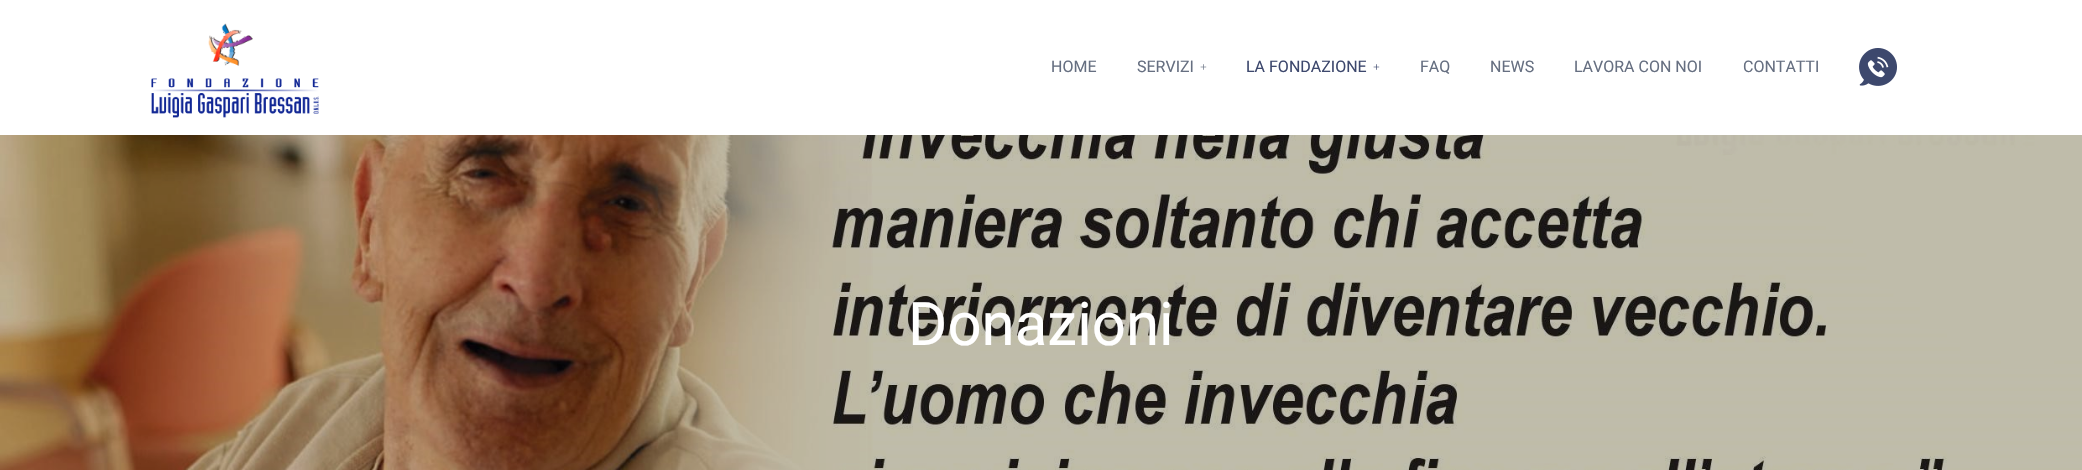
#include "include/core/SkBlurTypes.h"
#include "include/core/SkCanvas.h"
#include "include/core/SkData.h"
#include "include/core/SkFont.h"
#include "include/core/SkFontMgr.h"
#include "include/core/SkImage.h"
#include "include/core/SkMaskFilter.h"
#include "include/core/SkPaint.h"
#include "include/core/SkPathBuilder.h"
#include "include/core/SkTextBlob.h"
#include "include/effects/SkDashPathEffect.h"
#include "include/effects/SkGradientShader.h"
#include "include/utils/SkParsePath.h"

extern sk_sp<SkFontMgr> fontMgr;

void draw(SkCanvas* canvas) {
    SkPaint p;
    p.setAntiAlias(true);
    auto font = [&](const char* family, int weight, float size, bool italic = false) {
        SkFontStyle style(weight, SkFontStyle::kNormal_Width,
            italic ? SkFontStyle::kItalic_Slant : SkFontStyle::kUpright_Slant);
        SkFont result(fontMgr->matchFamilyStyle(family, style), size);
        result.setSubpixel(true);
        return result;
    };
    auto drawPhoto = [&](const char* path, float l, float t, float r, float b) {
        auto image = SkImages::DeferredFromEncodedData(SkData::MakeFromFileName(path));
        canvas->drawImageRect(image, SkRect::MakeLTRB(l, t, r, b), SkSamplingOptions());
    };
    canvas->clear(0xFFFFFFFF);
    drawPhoto("media/1.png", 151, 23, 319, 118);
    auto font1 = font("Roboto", 400, 16);
    p.setColor(0xFF666F81);
    canvas->drawString("HOME", 1051, 72, font1, p);
    canvas->drawString("SERVIZI", 1137, 72, font1, p);
    auto font2 = font("Liberation Serif", 400, 12);
    canvas->drawString("+", 1200, 71, font2, p);
    p.setColor(0xFF3D486D);
    canvas->drawString("LA FONDAZIONE", 1246, 72, font1, p);
    canvas->drawString("+", 1373, 71, font2, p);
    p.setColor(0xFF666F81);
    {
        const struct { const char* s; float x, y; } items[] = {
            {"FAQ", 1420, 72},
            {"NEWS", 1490, 72},
            {"LAVORA CON NOI", 1574, 72},
            {"CONTATTI", 1743, 72},
        };
        for (auto [s, x, y] : items) {
            canvas->drawString(s, x, y, font1, p);
        }
    }
    drawPhoto("media/2.png", 1859, 48, 1897, 86);
    drawPhoto("media/3.png", 0, 135, 2082, 470);
    auto font3 = font("Roboto", 400, 60);
    p.setColor(0xFFFFFFFF);
    canvas->drawString("Donazioni", 908, 345, font3, p);
}
